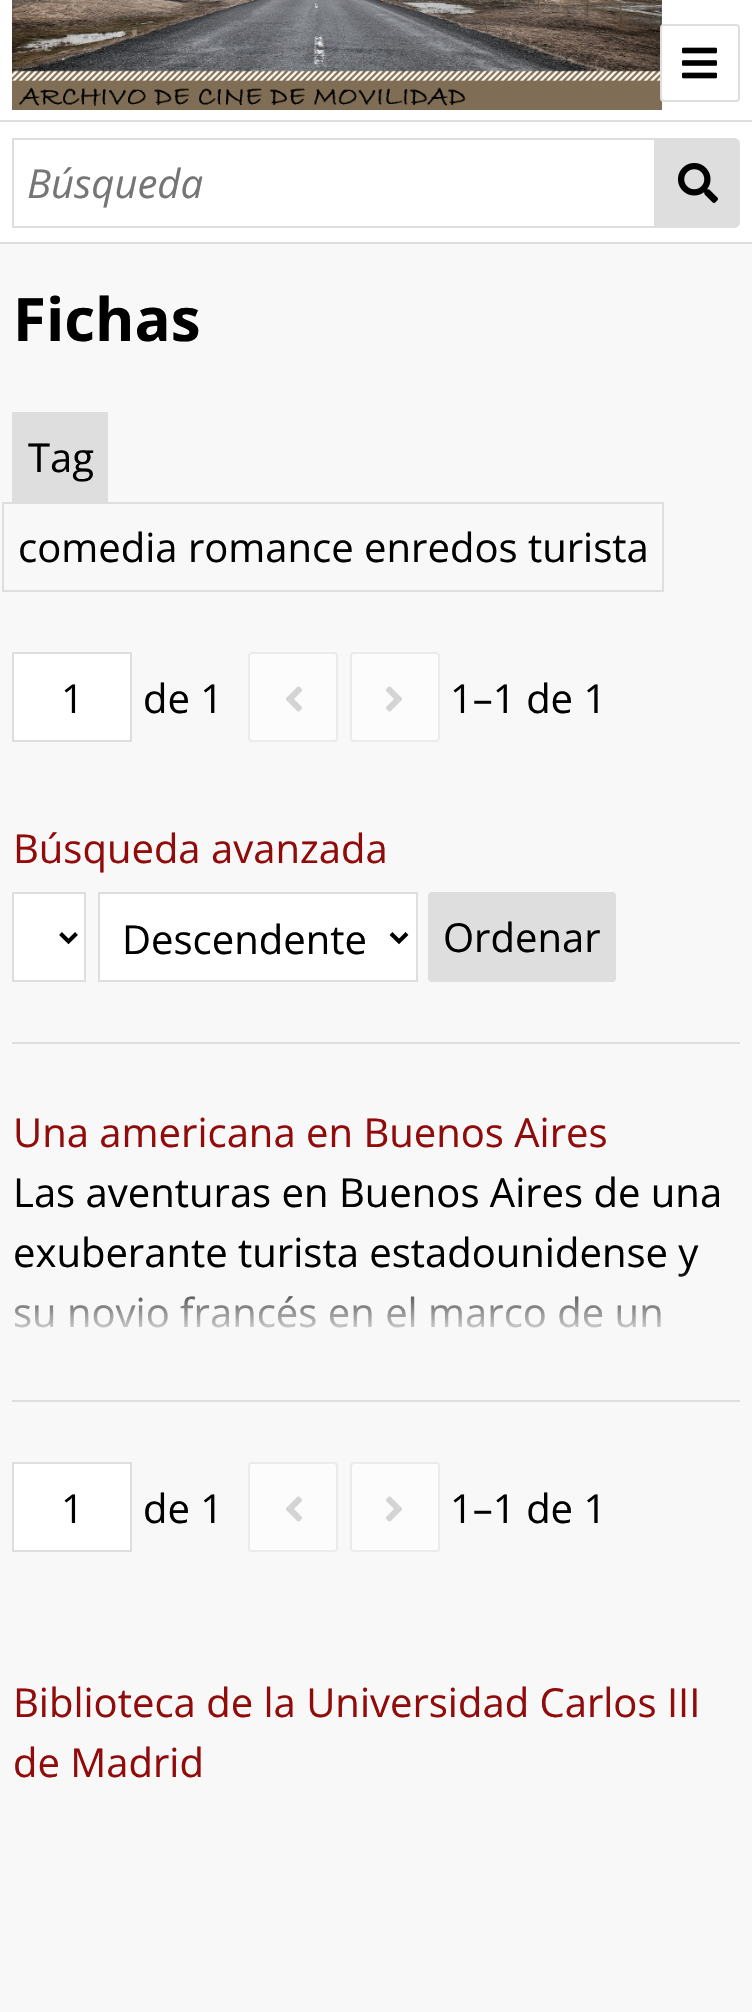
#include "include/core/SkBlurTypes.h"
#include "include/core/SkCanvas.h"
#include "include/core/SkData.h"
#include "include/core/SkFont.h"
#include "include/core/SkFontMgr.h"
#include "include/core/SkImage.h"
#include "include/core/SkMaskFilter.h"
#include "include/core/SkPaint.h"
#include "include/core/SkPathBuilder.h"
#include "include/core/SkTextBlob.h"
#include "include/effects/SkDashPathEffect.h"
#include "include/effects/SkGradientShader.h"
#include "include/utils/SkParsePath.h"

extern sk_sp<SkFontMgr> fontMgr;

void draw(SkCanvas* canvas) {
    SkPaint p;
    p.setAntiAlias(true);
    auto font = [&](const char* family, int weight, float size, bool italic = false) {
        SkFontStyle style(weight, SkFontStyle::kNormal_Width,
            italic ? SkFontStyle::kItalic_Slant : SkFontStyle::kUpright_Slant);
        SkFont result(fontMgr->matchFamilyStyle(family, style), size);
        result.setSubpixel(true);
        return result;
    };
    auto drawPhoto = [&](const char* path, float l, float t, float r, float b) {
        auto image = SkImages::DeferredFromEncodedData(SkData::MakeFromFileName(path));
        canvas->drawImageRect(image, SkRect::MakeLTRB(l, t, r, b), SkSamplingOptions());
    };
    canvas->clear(0xFFF8F8F8);
    p.setColor(0xFFFFFFFF);
    canvas->drawRect(SkRect::MakeLTRB(0, 0, 752, 120), p);
    drawPhoto("media/1.png", 12, 0, 662, 110);
    p.setStyle(SkPaint::kStroke_Style);
    p.setStrokeWidth(2);
    p.setColor(0xFFDEDEDE);
    canvas->drawRoundRect(SkRect::MakeLTRB(661, 25, 739, 101), 3, 3, p);
    drawPhoto("media/2.png", 682, 47, 717, 79);
    p.setStyle(SkPaint::kFill_Style);
    {
        const struct { float l, t, r, b; SkColor color; } items[] = {
            {0, 122, 752, 242, 0xFFFFFFFF},
            {0, 120, 752, 122, 0xFFDEDEDE},
            {0, 242, 752, 244, 0xFFDEDEDE},
        };
        for (auto [l, t, r, b, color] : items) {
            p.setColor(color);
            canvas->drawRect(SkRect::MakeLTRB(l, t, r, b), p);
        }
    }
    p.setStyle(SkPaint::kStroke_Style);
    canvas->drawRect(SkRect::MakeLTRB(13, 139, 655, 227), p);
    auto font1 = font("Open Sans", 400, 40, true);
    p.setStyle(SkPaint::kFill_Style);
    p.setColor(0xFF757575);
    canvas->drawString("Búsqueda", 27, 198, font1, p);
    p.setColor(0xFFDEDEDE);
    canvas->drawPath(SkPathBuilder().moveTo(656, 138).lineTo(734, 138).cubicTo(737.5f, 138, 740, 140.5f, 740, 144).lineTo(740, 222).cubicTo(740, 225.5f, 737.5f, 228, 734, 228).lineTo(656, 228).close().detach(), p);
    drawPhoto("media/3.png", 678, 163, 718, 203);
    auto font2 = font("Open Sans", 700, 60);
    p.setColor(0xFF000000);
    canvas->drawString("Fichas", 13, 341, font2, p);
    p.setColor(0xFFDEDEDE);
    canvas->drawRect(SkRect::MakeLTRB(12, 412, 108, 502), p);
    auto font3 = font("Open Sans", 400, 40);
    p.setColor(0xFF000000);
    canvas->drawString("Tag", 28, 472, font3, p);
    p.setStyle(SkPaint::kStroke_Style);
    p.setColor(0xFFDEDEDE);
    canvas->drawRect(SkRect::MakeLTRB(3, 503, 663, 591), p);
    p.setStyle(SkPaint::kFill_Style);
    p.setColor(0xFF000000);
    canvas->drawString("comedia romance enredos turista", 18, 562, font3, p);
    p.setColor(0xFFFFFFFF);
    canvas->drawRect(SkRect::MakeLTRB(13, 653, 131, 741), p);
    p.setStyle(SkPaint::kStroke_Style);
    p.setColor(0xFFDEDEDE);
    canvas->drawRect(SkRect::MakeLTRB(13, 653, 131, 741), p);
    p.setStyle(SkPaint::kFill_Style);
    p.setColor(0xFF000000);
    canvas->drawString("1", 61, 713, font3, p);
    canvas->drawString("de 1", 143, 713, font3, p);
    p.setColor(0xFFFCFCFC);
    canvas->drawRoundRect(SkRect::MakeLTRB(249, 653, 337, 741), 3, 3, p);
    p.setStyle(SkPaint::kStroke_Style);
    p.setColor(0xFFEBEBEB);
    canvas->drawRoundRect(SkRect::MakeLTRB(249, 653, 337, 741), 3, 3, p);
    drawPhoto("media/4.png", 286, 686, 302, 712);
    p.setStyle(SkPaint::kFill_Style);
    p.setColor(0xFFFCFCFC);
    canvas->drawRoundRect(SkRect::MakeLTRB(351, 653, 439, 741), 3, 3, p);
    p.setStyle(SkPaint::kStroke_Style);
    p.setColor(0xFFEBEBEB);
    canvas->drawRoundRect(SkRect::MakeLTRB(351, 653, 439, 741), 3, 3, p);
    drawPhoto("media/5.png", 386, 686, 402, 712);
    p.setStyle(SkPaint::kFill_Style);
    p.setColor(0xFF000000);
    canvas->drawString("1–1 de 1", 450, 713, font3, p);
    p.setColor(0xFF920B0B);
    canvas->drawString("Búsqueda avanzada", 13, 863, font3, p);
    p.setColor(0xFFFFFFFF);
    canvas->drawRect(SkRect::MakeLTRB(13, 893, 85, 981), p);
    p.setStyle(SkPaint::kStroke_Style);
    p.setColor(0xFFDEDEDE);
    canvas->drawRect(SkRect::MakeLTRB(13, 893, 85, 981), p);
    p.setStrokeWidth(4);
    p.setColor(0xFF000000);
    canvas->drawPath(SkPathBuilder().moveTo(60.5f, 933.5f).lineTo(68.5f, 941.5f).lineTo(76.5f, 933.5f).detach(), p);
    p.setStyle(SkPaint::kFill_Style);
    p.setColor(0xFFFFFFFF);
    canvas->drawRect(SkRect::MakeLTRB(99, 893, 417, 981), p);
    p.setStyle(SkPaint::kStroke_Style);
    p.setStrokeWidth(2);
    p.setColor(0xFFDEDEDE);
    canvas->drawRect(SkRect::MakeLTRB(99, 893, 417, 981), p);
    p.setStrokeWidth(4);
    p.setColor(0xFF000000);
    canvas->drawPath(SkPathBuilder().moveTo(391, 933.5f).lineTo(399, 941.5f).lineTo(407, 933.5f).detach(), p);
    p.setStyle(SkPaint::kFill_Style);
    canvas->drawString("Descendente", 122, 954, font3, p);
    p.setColor(0xFFDEDEDE);
    canvas->drawRoundRect(SkRect::MakeLTRB(428, 892, 616, 982), 4, 4, p);
    p.setColor(0xFF000000);
    canvas->drawString("Ordenar", 443, 952, font3, p);
    p.setColor(0xFFDEDEDE);
    canvas->drawRect(SkRect::MakeLTRB(12, 1042, 740, 1044), p);
    canvas->drawRect(SkRect::MakeLTRB(12, 1400, 740, 1402), p);
    p.setColor(0xFF920B0B);
    canvas->drawString("Una americana en Buenos Aires", 13, 1147, font3, p);
    p.setColor(0xFF000000);
    {
        const struct { const char* s; float x, y; } items[] = {
            {"Las aventuras en Buenos Aires de una", 13, 1207},
            {"exuberante turista estadounidense y", 13, 1267},
            {"su novio francés en el marco de un", 13, 1327},
        };
        for (auto [s, x, y] : items) {
            canvas->drawString(s, x, y, font3, p);
        }
    }
    {
        const SkColor colors[] = {0xFFF8F8F8, 0x00F8F8F8};
        const float stops[] = {0, 1};
        const SkPoint ends[] = {{376, 1342}, {376, 1268}};
        p.setShader(SkGradientShader::MakeLinear(ends, colors, stops, 2, SkTileMode::kClamp));
        p.setAlpha(255);
    }
    canvas->drawRect(SkRect::MakeLTRB(14, 1270, 689, 1328), p);
    p.setShader(nullptr);
    p.setColor(0xFFFFFFFF);
    canvas->drawRect(SkRect::MakeLTRB(13, 1463, 131, 1551), p);
    p.setStyle(SkPaint::kStroke_Style);
    p.setStrokeWidth(2);
    p.setColor(0xFFDEDEDE);
    canvas->drawRect(SkRect::MakeLTRB(13, 1463, 131, 1551), p);
    p.setStyle(SkPaint::kFill_Style);
    p.setColor(0xFF000000);
    canvas->drawString("1", 61, 1523, font3, p);
    canvas->drawString("de 1", 143, 1523, font3, p);
    p.setColor(0xFFFCFCFC);
    canvas->drawRoundRect(SkRect::MakeLTRB(249, 1463, 337, 1551), 3, 3, p);
    p.setStyle(SkPaint::kStroke_Style);
    p.setColor(0xFFEBEBEB);
    canvas->drawRoundRect(SkRect::MakeLTRB(249, 1463, 337, 1551), 3, 3, p);
    drawPhoto("media/4.png", 286, 1496, 302, 1522);
    p.setStyle(SkPaint::kFill_Style);
    p.setColor(0xFFFCFCFC);
    canvas->drawRoundRect(SkRect::MakeLTRB(351, 1463, 439, 1551), 3, 3, p);
    p.setStyle(SkPaint::kStroke_Style);
    p.setColor(0xFFEBEBEB);
    canvas->drawRoundRect(SkRect::MakeLTRB(351, 1463, 439, 1551), 3, 3, p);
    drawPhoto("media/5.png", 386, 1496, 402, 1522);
    p.setStyle(SkPaint::kFill_Style);
    p.setColor(0xFF000000);
    canvas->drawString("1–1 de 1", 450, 1523, font3, p);
    p.setColor(0xFF920B0B);
    canvas->drawString("Biblioteca de la Universidad Carlos III", 13, 1717, font3, p);
    canvas->drawString("de Madrid", 13, 1777, font3, p);
}
